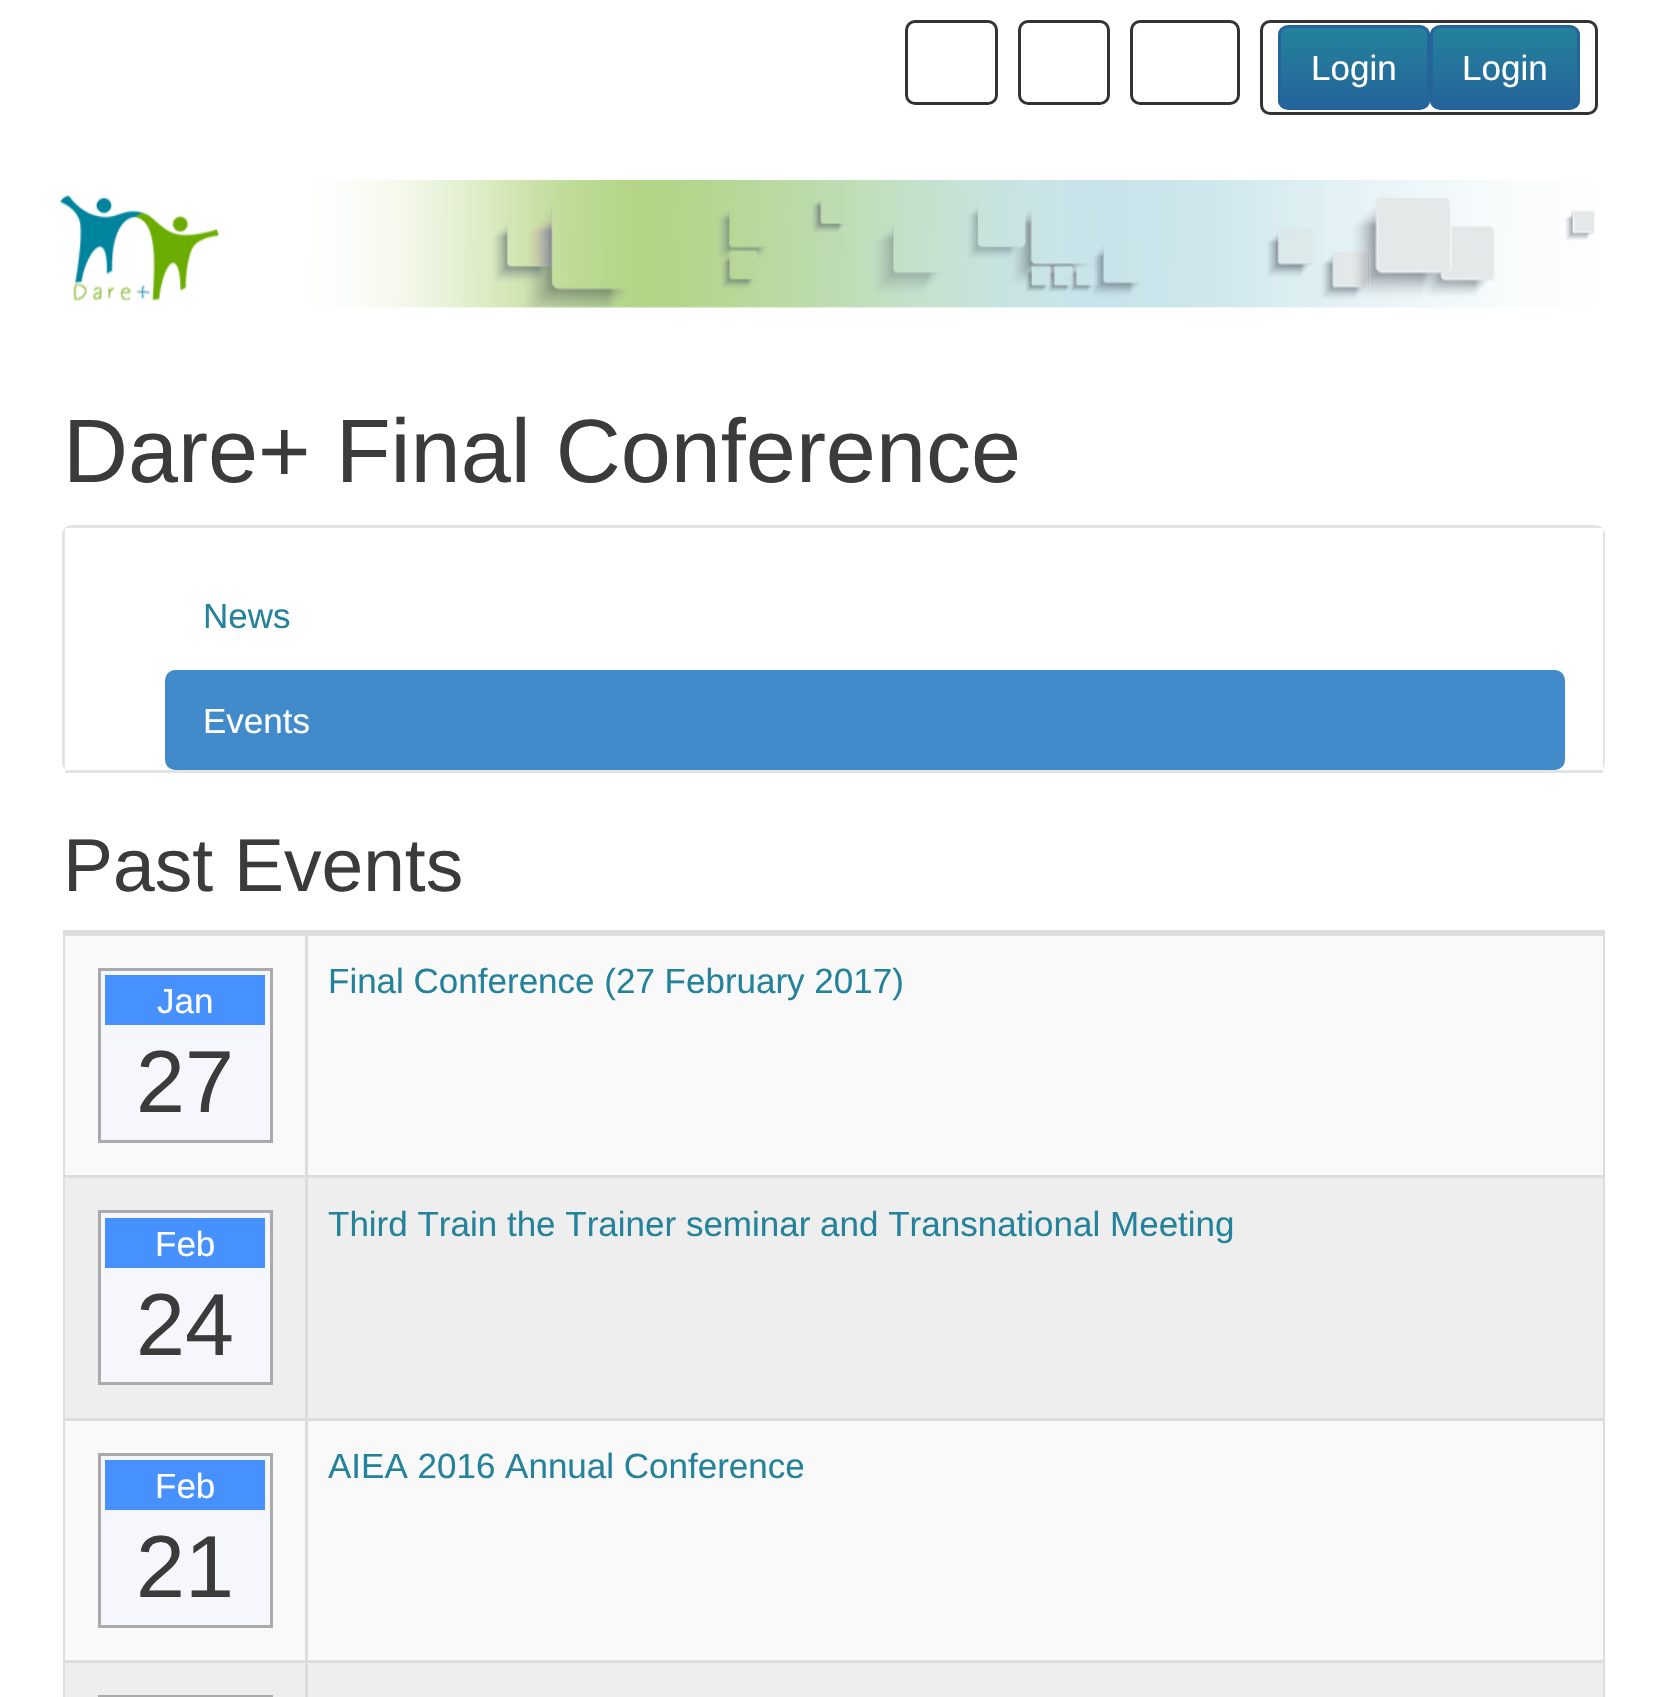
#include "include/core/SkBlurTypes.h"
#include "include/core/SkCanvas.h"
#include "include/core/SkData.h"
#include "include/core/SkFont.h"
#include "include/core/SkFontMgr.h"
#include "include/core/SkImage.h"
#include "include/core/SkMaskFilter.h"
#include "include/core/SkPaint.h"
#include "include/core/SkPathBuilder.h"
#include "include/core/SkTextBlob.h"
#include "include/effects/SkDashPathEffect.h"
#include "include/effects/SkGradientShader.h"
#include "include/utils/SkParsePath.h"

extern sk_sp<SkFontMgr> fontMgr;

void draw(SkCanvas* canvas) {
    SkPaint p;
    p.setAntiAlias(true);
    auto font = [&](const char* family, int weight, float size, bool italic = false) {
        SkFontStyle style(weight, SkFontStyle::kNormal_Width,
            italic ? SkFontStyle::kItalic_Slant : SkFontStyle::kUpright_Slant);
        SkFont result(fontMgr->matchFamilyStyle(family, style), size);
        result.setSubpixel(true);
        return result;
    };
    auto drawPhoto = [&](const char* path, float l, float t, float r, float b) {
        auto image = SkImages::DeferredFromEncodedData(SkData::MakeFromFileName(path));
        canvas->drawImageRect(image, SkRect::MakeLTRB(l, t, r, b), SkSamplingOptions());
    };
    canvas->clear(0xFFFFFFFF);
    p.setStyle(SkPaint::kStroke_Style);
    p.setStrokeWidth(3);
    p.setColor(0xFF333333);
    canvas->drawRoundRect(SkRect::MakeLTRB(906.5f, 21.5f, 996.5f, 103.5f), 8.5f, 8.5f, p);
    canvas->drawRoundRect(SkRect::MakeLTRB(1019.5f, 21.5f, 1108.5f, 103.5f), 8.5f, 8.5f, p);
    canvas->drawRoundRect(SkRect::MakeLTRB(1131.5f, 21.5f, 1238.5f, 103.5f), 8.5f, 8.5f, p);
    canvas->drawRoundRect(SkRect::MakeLTRB(1261.5f, 21.5f, 1596.5f, 113.5f), 8.5f, 8.5f, p);
    canvas->save();
    canvas->clipPath(SkPathBuilder().moveTo(1288, 25).lineTo(1420, 25).cubicTo(1425.5f, 25, 1430, 29.5f, 1430, 35).lineTo(1430, 100).cubicTo(1430, 105.5f, 1425.5f, 110, 1420, 110).lineTo(1288, 110).cubicTo(1282.5f, 110, 1278, 105.5f, 1278, 100).lineTo(1278, 35).cubicTo(1278, 29.5f, 1282.5f, 25, 1288, 25).close().detach(), true);
    p.setStyle(SkPaint::kFill_Style);
    {
        const SkColor colors[] = {0xFF24829B, 0xFF24649B};
        const float stops[] = {0, 1};
        const SkPoint ends[] = {{1354, 27}, {1354, 108}};
        p.setShader(SkGradientShader::MakeLinear(ends, colors, stops, 2, SkTileMode::kClamp));
        p.setAlpha(255);
    }
    canvas->drawRect(SkRect::MakeLTRB(1278, 28, 1430, 108), p);
    canvas->restore();
    p.setStyle(SkPaint::kStroke_Style);
    p.setShader(nullptr);
    p.setColor(0xFF24649B);
    canvas->drawRoundRect(SkRect::MakeLTRB(1279.5f, 26.5f, 1428.5f, 108.5f), 8.5f, 8.5f, p);
    auto font1 = font("Liberation Sans", 400, 35);
    p.setStyle(SkPaint::kFill_Style);
    p.setColor(0xFFFFFFFF);
    canvas->drawString("Login", 1311, 80, font1, p);
    canvas->save();
    canvas->clipPath(SkPathBuilder().moveTo(1440, 25).lineTo(1570, 25).cubicTo(1575.5f, 25, 1580, 29.5f, 1580, 35).lineTo(1580, 100).cubicTo(1580, 105.5f, 1575.5f, 110, 1570, 110).lineTo(1440, 110).cubicTo(1434.5f, 110, 1430, 105.5f, 1430, 100).lineTo(1430, 35).cubicTo(1430, 29.5f, 1434.5f, 25, 1440, 25).close().detach(), true);
    {
        const SkColor colors[] = {0xFF24829B, 0xFF24649B};
        const float stops[] = {0, 1};
        const SkPoint ends[] = {{1505, 27}, {1505, 108}};
        p.setShader(SkGradientShader::MakeLinear(ends, colors, stops, 2, SkTileMode::kClamp));
        p.setAlpha(255);
    }
    canvas->drawRect(SkRect::MakeLTRB(1430, 28, 1580, 108), p);
    canvas->restore();
    p.setStyle(SkPaint::kStroke_Style);
    p.setShader(nullptr);
    p.setColor(0xFF24649B);
    canvas->drawRoundRect(SkRect::MakeLTRB(1431.5f, 26.5f, 1578.5f, 108.5f), 8.5f, 8.5f, p);
    p.setStyle(SkPaint::kFill_Style);
    p.setColor(0xFFFFFFFF);
    canvas->drawString("Login", 1462, 80, font1, p);
    drawPhoto("media/1.png", 59, 180, 1595, 308);
    auto font2 = font("Liberation Sans", 400, 90);
    p.setColor(0xFF3B3B3B);
    canvas->drawString("Dare+ Final Conference", 63, 482, font2, p);
    p.setColor(0xFFE3E3E3);
    canvas->drawPath(SkPathBuilder(SkPathFillType::kEvenOdd).moveTo(72, 525).lineTo(1595, 525).cubicTo(1601, 525, 1605, 529, 1605, 535).lineTo(1605, 762).cubicTo(1605, 768, 1601, 772, 1595, 772).lineTo(72, 772).cubicTo(67, 772, 62, 768, 62, 762).lineTo(62, 535).cubicTo(62, 529, 67, 525, 72, 525).close().moveTo(72, 528).lineTo(1595, 528).cubicTo(1599, 528, 1602, 531, 1602, 535).lineTo(1602, 762).cubicTo(1602, 768, 1599, 772, 1595, 772).lineTo(72, 772).cubicTo(68, 772, 65, 768, 65, 762).lineTo(65, 535).cubicTo(65, 531, 68, 528, 72, 528).close().detach(), p);
    p.setColor(0xFFFFFFFF);
    canvas->drawRect(SkRect::MakeLTRB(65, 528, 1603, 770), p);
    p.setColor(0xFFE3E3E3);
    canvas->drawRect(SkRect::MakeLTRB(65, 770, 1603, 773), p);
    p.setColor(0xFF24829B);
    canvas->drawString("News", 203, 628, font1, p);
    p.setColor(0xFF428BCA);
    canvas->drawRoundRect(SkRect::MakeLTRB(165, 670, 1565, 770), 10, 10, p);
    p.setColor(0xFFFFFFFF);
    canvas->drawString("Events", 203, 733, font1, p);
    auto font3 = font("Liberation Sans", 400, 75);
    p.setColor(0xFF3B3B3B);
    canvas->drawString("Past Events", 63, 891, font3, p);
    p.setStyle(SkPaint::kStroke_Style);
    p.setColor(0xFFDDDDDD);
    canvas->drawRect(SkRect::MakeLTRB(64.5f, 931.5f, 1603.5f, 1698.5f), p);
    p.setStyle(SkPaint::kFill_Style);
    {
        const struct { float l, t, r, b; SkColor color; } items[] = {
            {308, 936, 1603, 1175, 0xFFF9F9F9},
            {305, 933, 1603, 936, 0xFFDDDDDD},
            {305, 1175, 1603, 1178, 0xFFDDDDDD},
            {65, 1178, 1603, 1418, 0xFFEEEEEE},
            {305, 1418, 1603, 1421, 0xFFDDDDDD},
            {305, 1660, 1603, 1663, 0xFFDDDDDD},
            {65, 1663, 1603, 1697, 0xFFEEEEEE},
            {305, 1660, 308, 1697, 0xFFDDDDDD},
            {65, 1660, 308, 1663, 0xFFDDDDDD},
            {305, 1418, 308, 1663, 0xFFDDDDDD},
            {65, 1418, 308, 1421, 0xFFDDDDDD},
            {305, 1175, 308, 1420, 0xFFDDDDDD},
            {65, 1175, 308, 1178, 0xFFDDDDDD},
            {305, 933, 308, 1178, 0xFFDDDDDD},
        };
        for (auto [l, t, r, b, color] : items) {
            p.setColor(color);
            canvas->drawRect(SkRect::MakeLTRB(l, t, r, b), p);
        }
    }
    p.setColor(0xFF24829B);
    canvas->drawString("Final Conference (27 February 2017)", 328, 993, font1, p);
    p.setColor(0xFFF9F9F9);
    canvas->drawRect(SkRect::MakeLTRB(65, 936, 305, 1175), p);
    p.setColor(0xFFDDDDDD);
    canvas->drawRect(SkRect::MakeLTRB(65, 933, 308, 936), p);
    p.setColor(0xFFF6F7FC);
    canvas->drawRect(SkRect::MakeLTRB(99.5f, 969.5f, 271.5f, 1141.5f), p);
    p.setStyle(SkPaint::kStroke_Style);
    p.setColor(0xFFAAAAAA);
    canvas->drawRect(SkRect::MakeLTRB(99.5f, 969.5f, 271.5f, 1141.5f), p);
    p.setStyle(SkPaint::kFill_Style);
    p.setColor(0xFF4791FF);
    canvas->drawRect(SkRect::MakeLTRB(105, 975, 265, 1025), p);
    p.setColor(0xFFFFFFFF);
    canvas->drawString("Jan", 157, 1013, font1, p);
    auto font4 = font("Liberation Sans", 400, 88);
    p.setColor(0xFF3B3B3B);
    canvas->drawString("27", 136, 1112, font4, p);
    p.setColor(0xFFF6F7FC);
    canvas->drawRect(SkRect::MakeLTRB(99.5f, 1211.5f, 271.5f, 1383.5f), p);
    p.setStyle(SkPaint::kStroke_Style);
    p.setColor(0xFFAAAAAA);
    canvas->drawRect(SkRect::MakeLTRB(99.5f, 1211.5f, 271.5f, 1383.5f), p);
    p.setStyle(SkPaint::kFill_Style);
    p.setColor(0xFF4791FF);
    canvas->drawRect(SkRect::MakeLTRB(105, 1218, 265, 1268), p);
    p.setColor(0xFFFFFFFF);
    canvas->drawString("Feb", 155, 1256, font1, p);
    p.setColor(0xFF3B3B3B);
    canvas->drawString("24", 136, 1355, font4, p);
    p.setColor(0xFF24829B);
    canvas->drawString("Third Train the Trainer seminar and Transnational Meeting", 328, 1236, font1, p);
    p.setColor(0xFFF9F9F9);
    canvas->drawRect(SkRect::MakeLTRB(308, 1421, 1603, 1660), p);
    p.setColor(0xFF24829B);
    canvas->drawString("AIEA 2016 Annual Conference", 328, 1478, font1, p);
    p.setColor(0xFFF9F9F9);
    canvas->drawRect(SkRect::MakeLTRB(65, 1421, 305, 1660), p);
    p.setColor(0xFFF6F7FC);
    canvas->drawRect(SkRect::MakeLTRB(99.5f, 1454.5f, 271.5f, 1626.5f), p);
    p.setStyle(SkPaint::kStroke_Style);
    p.setColor(0xFFAAAAAA);
    canvas->drawRect(SkRect::MakeLTRB(99.5f, 1454.5f, 271.5f, 1626.5f), p);
    p.setStyle(SkPaint::kFill_Style);
    p.setColor(0xFF4791FF);
    canvas->drawRect(SkRect::MakeLTRB(105, 1460, 265, 1510), p);
    p.setColor(0xFFFFFFFF);
    canvas->drawString("Feb", 155, 1498, font1, p);
    p.setColor(0xFF3B3B3B);
    canvas->drawString("21", 136, 1597, font4, p);
    p.setStyle(SkPaint::kStroke_Style);
    p.setColor(0xFFAAAAAA);
    canvas->drawRect(SkRect::MakeLTRB(99.5f, 1696.5f, 271.5f, 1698.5f), p);
}
